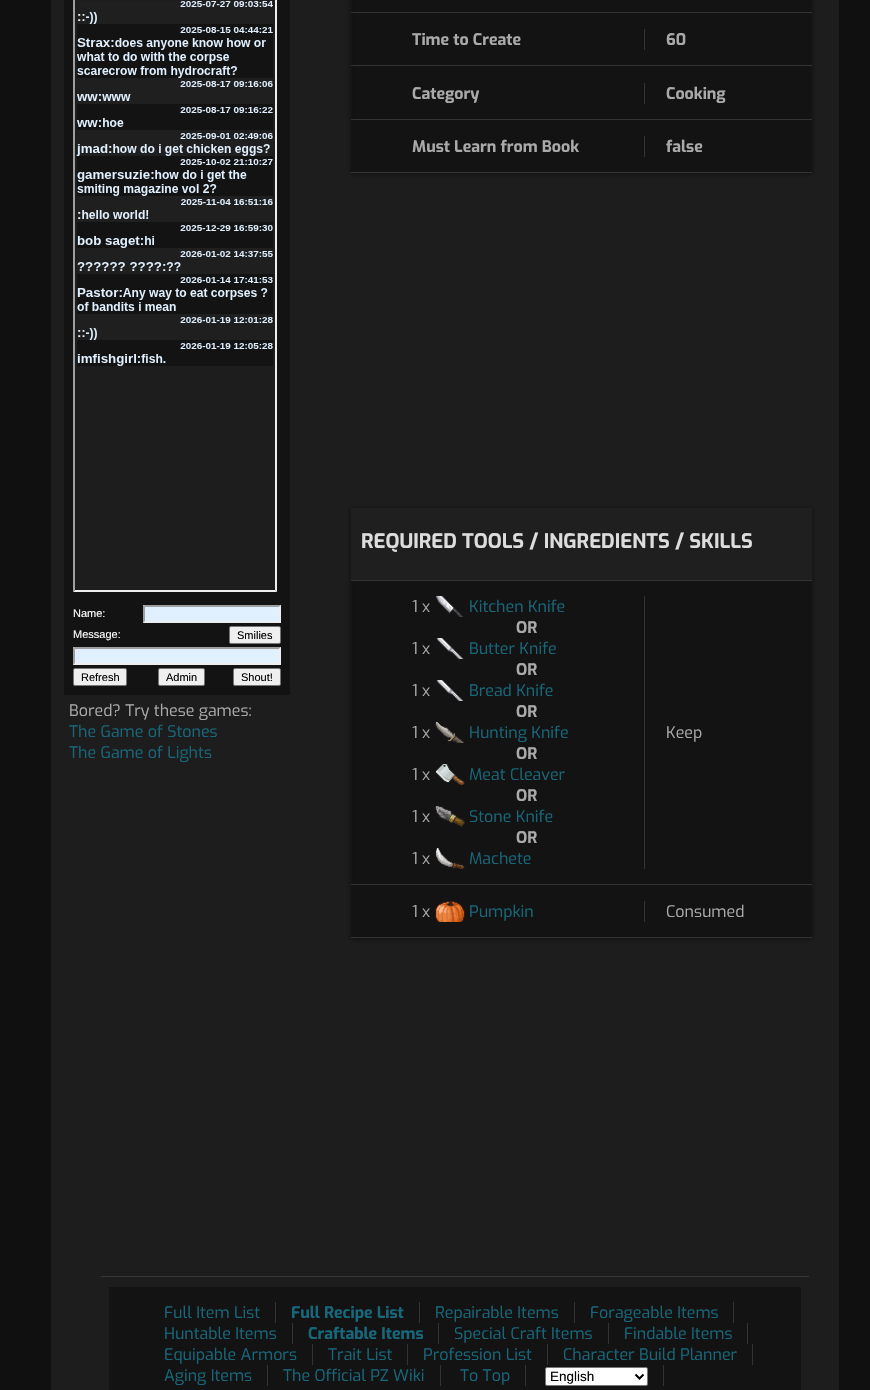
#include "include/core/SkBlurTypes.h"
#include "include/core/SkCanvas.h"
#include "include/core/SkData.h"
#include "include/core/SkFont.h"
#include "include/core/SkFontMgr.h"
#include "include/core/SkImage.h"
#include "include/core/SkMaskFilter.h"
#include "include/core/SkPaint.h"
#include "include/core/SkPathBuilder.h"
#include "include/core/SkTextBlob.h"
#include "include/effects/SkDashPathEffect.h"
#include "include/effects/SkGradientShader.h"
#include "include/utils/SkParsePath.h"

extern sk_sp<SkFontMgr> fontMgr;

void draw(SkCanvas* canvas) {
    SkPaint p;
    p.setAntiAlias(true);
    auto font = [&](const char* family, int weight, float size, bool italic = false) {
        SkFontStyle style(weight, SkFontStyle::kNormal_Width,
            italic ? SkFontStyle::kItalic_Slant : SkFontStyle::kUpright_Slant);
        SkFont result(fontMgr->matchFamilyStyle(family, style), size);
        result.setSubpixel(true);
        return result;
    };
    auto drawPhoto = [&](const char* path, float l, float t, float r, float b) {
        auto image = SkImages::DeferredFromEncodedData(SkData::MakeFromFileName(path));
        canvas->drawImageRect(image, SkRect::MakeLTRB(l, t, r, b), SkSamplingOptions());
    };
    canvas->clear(0xFF101010);
    {
        const struct { float l, t, r, b; SkColor color; } items[] = {
            {51, 0, 839, 1390, 0xFF1D1D1D},
            {64, 0, 290, 695, 0xFF131313},
            {73, 0, 277, 592, 0xFF1D1D1D},
        };
        for (auto [l, t, r, b, color] : items) {
            p.setColor(color);
            canvas->drawRect(SkRect::MakeLTRB(l, t, r, b), p);
        }
    }
    p.setColor(0xFFEEEEEE);
    canvas->drawPath(SkPathBuilder().moveTo(277, -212).lineTo(277, 592).lineTo(275, 590).lineTo(275, -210).close().detach(), p);
    canvas->drawPath(SkPathBuilder().moveTo(277, 592).lineTo(73, 592).lineTo(75, 590).lineTo(275, 590).close().detach(), p);
    p.setColor(0xFF9F9F9F);
    canvas->drawPath(SkPathBuilder().moveTo(73, 592).lineTo(73, -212).lineTo(75, -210).lineTo(75, 590).close().detach(), p);
    drawPhoto("media/1.png", 76, 1, 273, 366);
    auto font1 = font("Liberation Sans", 400, 11);
    p.setColor(0xFFFFFFFF);
    canvas->drawString("Name:", 73, 617, font1, p);
    p.setColor(0xFFE0F0FF);
    canvas->drawRect(SkRect::MakeLTRB(143, 605, 281, 623), p);
    p.setColor(0xFF9F9F9F);
    canvas->drawPath(SkPathBuilder().moveTo(143, 605).lineTo(281, 605).lineTo(279, 607).lineTo(145, 607).close().detach(), p);
    p.setColor(0xFFEEEEEE);
    canvas->drawPath(SkPathBuilder().moveTo(281, 605).lineTo(281, 623).lineTo(279, 621).lineTo(279, 607).close().detach(), p);
    canvas->drawPath(SkPathBuilder().moveTo(281, 623).lineTo(143, 623).lineTo(145, 621).lineTo(279, 621).close().detach(), p);
    p.setColor(0xFF9F9F9F);
    canvas->drawPath(SkPathBuilder().moveTo(143, 623).lineTo(143, 605).lineTo(145, 607).lineTo(145, 621).close().detach(), p);
    p.setColor(0xFFFFFFFF);
    canvas->drawString("Message:", 73, 638, font1, p);
    p.setColor(0xFFEFEFEF);
    canvas->drawRoundRect(SkRect::MakeLTRB(229.5f, 626.5f, 280.5f, 643.5f), 1.5f, 1.5f, p);
    p.setStyle(SkPaint::kStroke_Style);
    p.setStrokeWidth(1);
    p.setColor(0xFF767676);
    canvas->drawRoundRect(SkRect::MakeLTRB(229.5f, 626.5f, 280.5f, 643.5f), 1.5f, 1.5f, p);
    p.setStyle(SkPaint::kFill_Style);
    p.setColor(0xFF000000);
    canvas->drawString("Smilies", 237, 639, font1, p);
    p.setColor(0xFFE0F0FF);
    canvas->drawRect(SkRect::MakeLTRB(73, 647, 281, 665), p);
    p.setColor(0xFF9F9F9F);
    canvas->drawPath(SkPathBuilder().moveTo(73, 647).lineTo(281, 647).lineTo(279, 649).lineTo(75, 649).close().detach(), p);
    p.setColor(0xFFEEEEEE);
    canvas->drawPath(SkPathBuilder().moveTo(281, 647).lineTo(281, 665).lineTo(279, 663).lineTo(279, 649).close().detach(), p);
    canvas->drawPath(SkPathBuilder().moveTo(281, 665).lineTo(73, 665).lineTo(75, 663).lineTo(279, 663).close().detach(), p);
    p.setColor(0xFF9F9F9F);
    canvas->drawPath(SkPathBuilder().moveTo(73, 665).lineTo(73, 647).lineTo(75, 649).lineTo(75, 663).close().detach(), p);
    p.setColor(0xFFEFEFEF);
    canvas->drawRoundRect(SkRect::MakeLTRB(73.5f, 668.5f, 126.5f, 685.5f), 1.5f, 1.5f, p);
    p.setStyle(SkPaint::kStroke_Style);
    p.setColor(0xFF767676);
    canvas->drawRoundRect(SkRect::MakeLTRB(73.5f, 668.5f, 126.5f, 685.5f), 1.5f, 1.5f, p);
    p.setStyle(SkPaint::kFill_Style);
    p.setColor(0xFF000000);
    canvas->drawString("Refresh", 81, 681, font1, p);
    p.setColor(0xFFEFEFEF);
    canvas->drawRoundRect(SkRect::MakeLTRB(158.5f, 668.5f, 204.5f, 685.5f), 1.5f, 1.5f, p);
    p.setStyle(SkPaint::kStroke_Style);
    p.setColor(0xFF767676);
    canvas->drawRoundRect(SkRect::MakeLTRB(158.5f, 668.5f, 204.5f, 685.5f), 1.5f, 1.5f, p);
    p.setStyle(SkPaint::kFill_Style);
    p.setColor(0xFF000000);
    canvas->drawString("Admin", 166, 681, font1, p);
    p.setColor(0xFFEFEFEF);
    canvas->drawRoundRect(SkRect::MakeLTRB(233.5f, 668.5f, 280.5f, 685.5f), 1.5f, 1.5f, p);
    p.setStyle(SkPaint::kStroke_Style);
    p.setColor(0xFF767676);
    canvas->drawRoundRect(SkRect::MakeLTRB(233.5f, 668.5f, 280.5f, 685.5f), 1.5f, 1.5f, p);
    p.setStyle(SkPaint::kFill_Style);
    p.setColor(0xFF000000);
    canvas->drawString("Shout!", 241, 681, font1, p);
    auto font2 = font("Exo", 400, 16);
    p.setColor(0xFFAAAAAA);
    canvas->drawString("Bored? Try these games:", 69, 716, font2, p);
    p.setColor(0xFF17687C);
    canvas->drawString("The Game of Stones", 69, 737, font2, p);
    canvas->drawString("The Game of Lights", 69, 758, font2, p);
    p.setColor(0x80000000);
    p.setMaskFilter(SkMaskFilter::MakeBlur(kNormal_SkBlurStyle, 2.5f));
    canvas->drawRect(SkRect::MakeLTRB(351, -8, 812, 174), p);
    p.setMaskFilter(nullptr);
    {
        const struct { float l, t, r, b; SkColor color; } items[] = {
            {354, 0, 809, 12, 0xFF131313},
            {351, 12, 812, 13, 0xFF333333},
            {354, 13, 809, 65, 0xFF131313},
            {351, 65, 812, 66, 0xFF333333},
            {644, 29, 645, 50, 0xFF333333},
        };
        for (auto [l, t, r, b, color] : items) {
            p.setColor(color);
            canvas->drawRect(SkRect::MakeLTRB(l, t, r, b), p);
        }
    }
    auto font3 = font("Exo", 700, 16);
    p.setColor(0xFFAAAAAA);
    canvas->drawString("Time to Create", 412, 45, font3, p);
    canvas->drawString("60", 666, 45, font3, p);
    {
        const struct { float l, t, r, b; SkColor color; } items[] = {
            {354, 66, 809, 119, 0xFF131313},
            {351, 119, 812, 120, 0xFF333333},
            {644, 83, 645, 104, 0xFF333333},
        };
        for (auto [l, t, r, b, color] : items) {
            p.setColor(color);
            canvas->drawRect(SkRect::MakeLTRB(l, t, r, b), p);
        }
    }
    p.setColor(0xFFAAAAAA);
    canvas->drawString("Category", 412, 99, font3, p);
    canvas->drawString("Cooking", 666, 99, font3, p);
    {
        const struct { float l, t, r, b; SkColor color; } items[] = {
            {351, 120, 812, 172, 0xFF131313},
            {351, 172, 812, 173, 0xFF333333},
            {644, 136, 645, 157, 0xFF333333},
        };
        for (auto [l, t, r, b, color] : items) {
            p.setColor(color);
            canvas->drawRect(SkRect::MakeLTRB(l, t, r, b), p);
        }
    }
    p.setColor(0xFFAAAAAA);
    canvas->drawString("Must Learn from Book", 412, 152, font3, p);
    canvas->drawString("false", 666, 152, font3, p);
    p.setColor(0x80000000);
    p.setMaskFilter(SkMaskFilter::MakeBlur(kNormal_SkBlurStyle, 2.5f));
    canvas->drawRect(SkRect::MakeLTRB(351, 509, 812, 939), p);
    p.setMaskFilter(nullptr);
    p.setColor(0xFF1F1F1F);
    canvas->drawRect(SkRect::MakeLTRB(351, 508, 812, 580), p);
    p.setColor(0xFF333333);
    canvas->drawRect(SkRect::MakeLTRB(351, 580, 812, 581), p);
    auto font4 = font("Exo", 700, 20);
    p.setColor(0xFFDDDDDD);
    canvas->drawString("REQUIRED TOOLS / INGREDIENTS / SKILLS", 361, 548, font4, p);
    {
        const struct { float l, t, r, b; SkColor color; } items[] = {
            {354, 581, 809, 884, 0xFF131313},
            {351, 884, 812, 885, 0xFF333333},
            {644, 596, 645, 869, 0xFF333333},
        };
        for (auto [l, t, r, b, color] : items) {
            p.setColor(color);
            canvas->drawRect(SkRect::MakeLTRB(l, t, r, b), p);
        }
    }
    p.setColor(0xFFAAAAAA);
    canvas->drawString("1 x", 412, 612, font2, p);
    drawPhoto("media/2.png", 435, 596, 464, 617);
    p.setColor(0xFF17687C);
    canvas->drawString("Kitchen Knife", 469, 612, font2, p);
    p.setColor(0xFFAAAAAA);
    canvas->drawString("OR", 516, 633, font3, p);
    canvas->drawString("1 x", 412, 654, font2, p);
    drawPhoto("media/3.png", 436, 638, 464, 659);
    p.setColor(0xFF17687C);
    canvas->drawString("Butter Knife", 469, 654, font2, p);
    p.setColor(0xFFAAAAAA);
    canvas->drawString("OR", 516, 675, font3, p);
    canvas->drawString("1 x", 412, 696, font2, p);
    drawPhoto("media/3.png", 436, 680, 464, 701);
    p.setColor(0xFF17687C);
    canvas->drawString("Bread Knife", 469, 696, font2, p);
    p.setColor(0xFFAAAAAA);
    canvas->drawString("OR", 516, 717, font3, p);
    canvas->drawString("1 x", 412, 738, font2, p);
    drawPhoto("media/4.png", 435, 722, 464, 743);
    p.setColor(0xFF17687C);
    canvas->drawString("Hunting Knife", 469, 738, font2, p);
    p.setColor(0xFFAAAAAA);
    canvas->drawString("OR", 516, 759, font3, p);
    canvas->drawString("1 x", 412, 780, font2, p);
    drawPhoto("media/5.png", 435, 764, 465, 785);
    p.setColor(0xFF17687C);
    canvas->drawString("Meat Cleaver", 469, 780, font2, p);
    p.setColor(0xFFAAAAAA);
    canvas->drawString("OR", 516, 801, font3, p);
    canvas->drawString("1 x", 412, 822, font2, p);
    drawPhoto("media/6.png", 435, 806, 465, 827);
    p.setColor(0xFF17687C);
    canvas->drawString("Stone Knife", 469, 822, font2, p);
    p.setColor(0xFFAAAAAA);
    canvas->drawString("OR", 516, 843, font3, p);
    canvas->drawString("1 x", 412, 864, font2, p);
    drawPhoto("media/7.png", 435, 848, 465, 869);
    p.setColor(0xFF17687C);
    canvas->drawString("Machete", 469, 864, font2, p);
    p.setColor(0xFFAAAAAA);
    canvas->drawString("Keep", 666, 738, font2, p);
    {
        const struct { float l, t, r, b; SkColor color; } items[] = {
            {351, 885, 812, 937, 0xFF131313},
            {351, 937, 812, 938, 0xFF333333},
            {644, 901, 645, 922, 0xFF333333},
        };
        for (auto [l, t, r, b, color] : items) {
            p.setColor(color);
            canvas->drawRect(SkRect::MakeLTRB(l, t, r, b), p);
        }
    }
    p.setColor(0xFFAAAAAA);
    canvas->drawString("1 x", 412, 917, font2, p);
    drawPhoto("media/8.png", 435, 901, 465, 922);
    p.setColor(0xFF17687C);
    canvas->drawString("Pumpkin", 469, 917, font2, p);
    p.setColor(0xFFAAAAAA);
    canvas->drawString("Consumed", 666, 917, font2, p);
    {
        const struct { float l, t, r, b; SkColor color; } items[] = {
            {101, 1276, 809, 1277, 0xFF383838},
            {109, 1287, 801, 1390, 0xFF131313},
            {275, 1302, 276, 1323, 0xFF333333},
        };
        for (auto [l, t, r, b, color] : items) {
            p.setColor(color);
            canvas->drawRect(SkRect::MakeLTRB(l, t, r, b), p);
        }
    }
    p.setColor(0xFF17687C);
    canvas->drawString("Full Item List", 164, 1318, font2, p);
    p.setColor(0xFF333333);
    canvas->drawRect(SkRect::MakeLTRB(419, 1302, 420, 1323), p);
    p.setColor(0xFF17687C);
    canvas->drawString("Full Recipe List", 291, 1318, font3, p);
    p.setColor(0xFF333333);
    canvas->drawRect(SkRect::MakeLTRB(574, 1302, 575, 1323), p);
    p.setColor(0xFF17687C);
    canvas->drawString("Repairable Items", 435, 1318, font2, p);
    p.setColor(0xFF333333);
    canvas->drawRect(SkRect::MakeLTRB(733, 1302, 734, 1323), p);
    p.setColor(0xFF17687C);
    canvas->drawString("Forageable Items", 590, 1318, font2, p);
    p.setColor(0xFF333333);
    canvas->drawRect(SkRect::MakeLTRB(292, 1323, 293, 1344), p);
    p.setColor(0xFF17687C);
    canvas->drawString("Huntable Items", 164, 1339, font2, p);
    p.setColor(0xFF333333);
    canvas->drawRect(SkRect::MakeLTRB(438, 1323, 439, 1344), p);
    p.setColor(0xFF17687C);
    canvas->drawString("Craftable Items", 308, 1339, font3, p);
    p.setColor(0xFF333333);
    canvas->drawRect(SkRect::MakeLTRB(608, 1323, 609, 1344), p);
    p.setColor(0xFF17687C);
    canvas->drawString("Special Craft Items", 454, 1339, font2, p);
    p.setColor(0xFF333333);
    canvas->drawRect(SkRect::MakeLTRB(747, 1323, 748, 1344), p);
    p.setColor(0xFF17687C);
    canvas->drawString("Findable Items", 624, 1339, font2, p);
    p.setColor(0xFF333333);
    canvas->drawRect(SkRect::MakeLTRB(312, 1344, 313, 1365), p);
    p.setColor(0xFF17687C);
    canvas->drawString("Equipable Armors", 164, 1360, font2, p);
    p.setColor(0xFF333333);
    canvas->drawRect(SkRect::MakeLTRB(407, 1344, 408, 1365), p);
    p.setColor(0xFF17687C);
    canvas->drawString("Trait List", 328, 1360, font2, p);
    p.setColor(0xFF333333);
    canvas->drawRect(SkRect::MakeLTRB(547, 1344, 548, 1365), p);
    p.setColor(0xFF17687C);
    canvas->drawString("Profession List", 423, 1360, font2, p);
    p.setColor(0xFF333333);
    canvas->drawRect(SkRect::MakeLTRB(752, 1344, 753, 1365), p);
    p.setColor(0xFF17687C);
    canvas->drawString("Character Build Planner", 563, 1360, font2, p);
    p.setColor(0xFF333333);
    canvas->drawRect(SkRect::MakeLTRB(267, 1365, 268, 1386), p);
    p.setColor(0xFF17687C);
    canvas->drawString("Aging Items", 164, 1381, font2, p);
    p.setColor(0xFF333333);
    canvas->drawRect(SkRect::MakeLTRB(440, 1365, 441, 1386), p);
    p.setColor(0xFF17687C);
    canvas->drawString("The Official PZ Wiki", 283, 1381, font2, p);
    p.setColor(0xFF333333);
    canvas->drawRect(SkRect::MakeLTRB(525, 1365, 526, 1386), p);
    p.setColor(0xFF17687C);
    canvas->drawString("To Top", 460, 1381, font2, p);
    p.setColor(0xFF333333);
    canvas->drawRect(SkRect::MakeLTRB(663, 1365, 664, 1386), p);
    p.setColor(0xFFFFFFFF);
    canvas->drawRoundRect(SkRect::MakeLTRB(545.5f, 1367.5f, 647.5f, 1385.5f), 1.5f, 1.5f, p);
    p.setStyle(SkPaint::kStroke_Style);
    p.setColor(0xFF767676);
    canvas->drawRoundRect(SkRect::MakeLTRB(545.5f, 1367.5f, 647.5f, 1385.5f), 1.5f, 1.5f, p);
    p.setStrokeWidth(2);
    p.setColor(0xFF000000);
    canvas->drawPath(SkPathBuilder().moveTo(635.5f, 1374.5f).lineTo(639.5f, 1378.5f).lineTo(643.5f, 1374.5f).detach(), p);
    auto font5 = font("Liberation Sans", 400, 13.5f);
    p.setStyle(SkPaint::kFill_Style);
    canvas->drawString("English", 550, 1381, font5, p);
}
